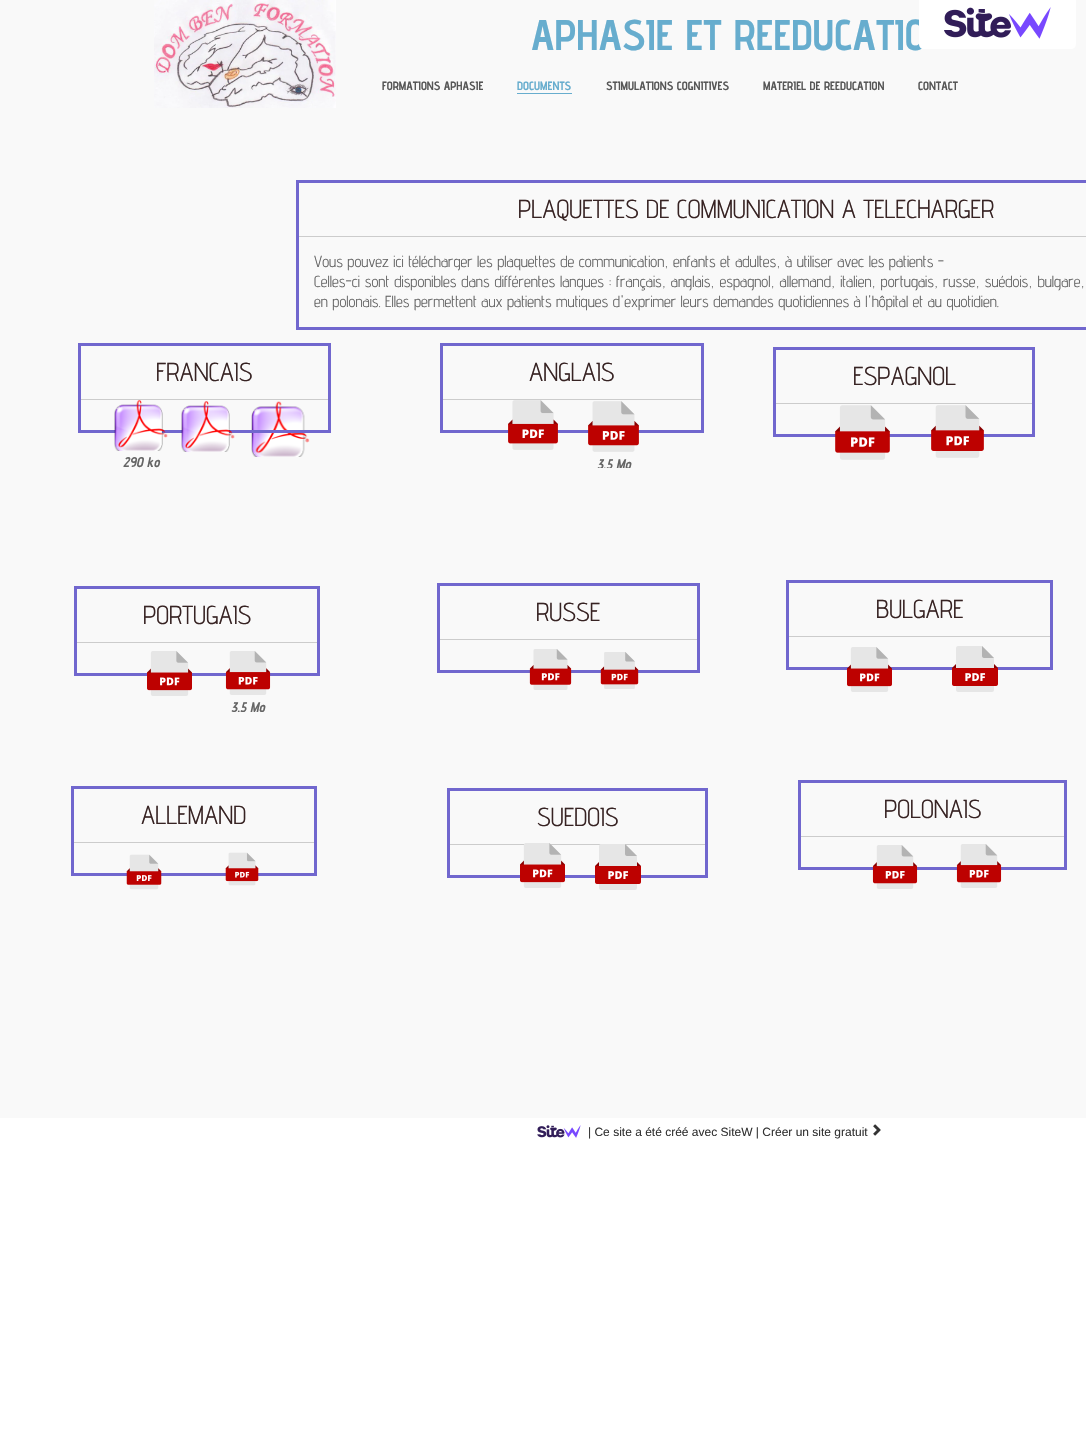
#include "include/core/SkBlurTypes.h"
#include "include/core/SkCanvas.h"
#include "include/core/SkData.h"
#include "include/core/SkFont.h"
#include "include/core/SkFontMgr.h"
#include "include/core/SkImage.h"
#include "include/core/SkMaskFilter.h"
#include "include/core/SkPaint.h"
#include "include/core/SkPathBuilder.h"
#include "include/core/SkTextBlob.h"
#include "include/effects/SkDashPathEffect.h"
#include "include/effects/SkGradientShader.h"
#include "include/utils/SkParsePath.h"

extern sk_sp<SkFontMgr> fontMgr;

void draw(SkCanvas* canvas) {
    SkPaint p;
    p.setAntiAlias(true);
    auto font = [&](const char* family, int weight, float size, bool italic = false) {
        SkFontStyle style(weight, SkFontStyle::kNormal_Width,
            italic ? SkFontStyle::kItalic_Slant : SkFontStyle::kUpright_Slant);
        SkFont result(fontMgr->matchFamilyStyle(family, style), size);
        result.setSubpixel(true);
        return result;
    };
    auto drawTracked = [&](const char* s, float x, float y, const SkFont& font, const SkPaint& ink, float letter, float word) {
        std::vector<SkGlyphID> glyphs(font.countText(s, strlen(s), SkTextEncoding::kUTF8));
        std::vector<float> xs(glyphs.size());
        font.textToGlyphs(s, strlen(s), SkTextEncoding::kUTF8, glyphs);
        font.getXPos(glyphs, xs, x);
        float extra = 0;
        for (size_t i = 0; i < glyphs.size(); i++) {
            xs[i] += extra;
            extra += letter + word * (glyphs[i] == font.unicharToGlyph(' '));
        }
        canvas->drawTextBlob(SkTextBlob::MakeFromPosHGlyphs(glyphs, xs, y, font), 0, 0, ink);
    };
    auto drawPhoto = [&](const char* path, float l, float t, float r, float b) {
        auto image = SkImages::DeferredFromEncodedData(SkData::MakeFromFileName(path));
        canvas->drawImageRect(image, SkRect::MakeLTRB(l, t, r, b), SkSamplingOptions());
    };
    canvas->clear(0xFFFFFFFF);
    p.setColor(0xFFF9F9F9);
    canvas->drawRect(SkRect::MakeLTRB(0, 0, 1086, 1118), p);
    auto font1 = font("Advent Pro", 700, 43);
    p.setColor(0xFF67ADCE);
    canvas->drawString("APHASIE ET REEDUCATIO", 531, 50, font1, p);
    p.setColor(0xFFFFFFFF);
    canvas->drawPath(SkPathBuilder().moveTo(919, -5).lineTo(1076, -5).lineTo(1076, 44).cubicTo(1076, 47, 1074, 49, 1071, 49).lineTo(924, 49).cubicTo(921, 49, 919, 47, 919, 44).close().detach(), p);
    drawPhoto("media/1.png", 944, 7, 1051, 39);
    drawPhoto("media/2.png", 154, 0, 336, 108);
    auto font2 = font("Advent Pro", 700, 12);
    p.setColor(0xFF565656);
    canvas->drawString("FORMATIONS APHASIE", 382, 90, font2, p);
    p.setColor(0xFF67ADCE);
    canvas->drawString("DOCUMENTS", 517, 90, font2, p);
    canvas->drawRect(SkRect::MakeLTRB(517, 93, 572, 94), p);
    p.setColor(0xFF565656);
    {
        const struct { const char* s; float x, y; } items[] = {
            {"STIMULATIONS COGNITIVES", 606, 90},
            {"MATERIEL DE REEDUCATION", 763, 90},
            {"CONTACT", 918, 90},
        };
        for (auto [s, x, y] : items) {
            canvas->drawString(s, x, y, font2, p);
        }
    }
    p.setStyle(SkPaint::kStroke_Style);
    p.setStrokeWidth(3);
    p.setColor(0xFF7167CE);
    canvas->drawRect(SkRect::MakeLTRB(297.5f, 181.5f, 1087.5f, 328.5f), p);
    p.setStyle(SkPaint::kFill_Style);
    p.setColor(0xFFCCCCCC);
    canvas->drawRect(SkRect::MakeLTRB(299, 236, 1086, 237), p);
    auto font3 = font("Advent Pro", 400, 26);
    p.setColor(0xFF372323);
    canvas->drawString("PLAQUETTES DE COMMUNICATION A TELECHARGER", 518, 218, font3, p);
    auto font4 = font("Advent Pro", 400, 16);
    p.setColor(0xFF656565);
    canvas->drawString("Vous pouvez ici télécharger les plaquettes de communication, enfants et adultes, à utiliser avec les patients -", 314, 267, font4, p);
    drawTracked("Celles-ci sont disponibles dans différentes langues : français, anglais, espagnol, allemand, italien, portugais, russe, suédois, bulgare,", 314, 287, font4, p, 0, 0.4f);
    canvas->drawString("en polonais. Elles permettent aux patients mutiques d'exprimer leurs demandes quotidiennes à l'hôpital et au quotidien.", 314, 307, font4, p);
    drawPhoto("media/4.png", 251, 401, 310, 457);
    p.setStyle(SkPaint::kStroke_Style);
    p.setColor(0xFF7167CE);
    canvas->drawRect(SkRect::MakeLTRB(79.5f, 344.5f, 329.5f, 431.5f), p);
    p.setStyle(SkPaint::kFill_Style);
    p.setColor(0xFFCCCCCC);
    canvas->drawRect(SkRect::MakeLTRB(81, 399, 328, 400), p);
    p.setColor(0xFF372323);
    canvas->drawString("FRANCAIS", 156, 381, font3, p);
    p.setStyle(SkPaint::kStroke_Style);
    p.setColor(0xFF7167CE);
    canvas->drawRect(SkRect::MakeLTRB(441.5f, 344.5f, 702.5f, 431.5f), p);
    p.setStyle(SkPaint::kFill_Style);
    p.setColor(0xFFCCCCCC);
    canvas->drawRect(SkRect::MakeLTRB(443, 399, 701, 400), p);
    p.setColor(0xFF372323);
    canvas->drawString("ANGLAIS", 529, 381, font3, p);
    p.setStyle(SkPaint::kStroke_Style);
    p.setColor(0xFF7167CE);
    canvas->drawRect(SkRect::MakeLTRB(774.5f, 348.5f, 1033.5f, 435.5f), p);
    p.setStyle(SkPaint::kFill_Style);
    p.setColor(0xFFCCCCCC);
    canvas->drawRect(SkRect::MakeLTRB(776, 403, 1032, 404), p);
    p.setColor(0xFF372323);
    canvas->drawString("ESPAGNOL", 853, 385, font3, p);
    drawPhoto("media/3.png", 181, 401, 235, 452);
    drawPhoto("media/5.png", 508, 400, 558, 450);
    drawPhoto("media/6.png", 835, 405, 890, 460);
    drawPhoto("media/7.png", 931, 405, 984, 458);
    drawPhoto("media/8.png", 114, 400, 168, 451);
    auto font5 = font("Advent Pro", 700, 14, true);
    p.setColor(0xFF656565);
    canvas->drawString("290 ko", 123, 467, font5, p);
    drawPhoto("media/9.png", 588, 401, 639, 452);
    canvas->save();
    canvas->clipRect(SkRect::MakeLTRB(587, 400, 640, 468));
    canvas->drawString("3,5 Mo", 597, 469, font5, p);
    canvas->restore();
    p.setStyle(SkPaint::kStroke_Style);
    p.setColor(0xFF7167CE);
    canvas->drawRect(SkRect::MakeLTRB(75.5f, 587.5f, 318.5f, 674.5f), p);
    p.setStyle(SkPaint::kFill_Style);
    p.setColor(0xFFCCCCCC);
    canvas->drawRect(SkRect::MakeLTRB(77, 642, 317, 643), p);
    p.setColor(0xFF372323);
    canvas->drawString("PORTUGAIS", 143, 624, font3, p);
    p.setStyle(SkPaint::kStroke_Style);
    p.setColor(0xFF7167CE);
    canvas->drawRect(SkRect::MakeLTRB(438.5f, 584.5f, 698.5f, 671.5f), p);
    p.setStyle(SkPaint::kFill_Style);
    p.setColor(0xFFCCCCCC);
    canvas->drawRect(SkRect::MakeLTRB(440, 639, 697, 640), p);
    p.setColor(0xFF372323);
    canvas->drawString("RUSSE", 536, 621, font3, p);
    p.setStyle(SkPaint::kStroke_Style);
    p.setColor(0xFF7167CE);
    canvas->drawRect(SkRect::MakeLTRB(787.5f, 581.5f, 1051.5f, 668.5f), p);
    p.setStyle(SkPaint::kFill_Style);
    p.setColor(0xFFCCCCCC);
    canvas->drawRect(SkRect::MakeLTRB(789, 636, 1050, 637), p);
    p.setColor(0xFF372323);
    canvas->drawString("BULGARE", 876, 618, font3, p);
    drawPhoto("media/10.png", 147, 651, 192, 696);
    drawPhoto("media/11.png", 529, 649, 572, 690);
    drawPhoto("media/12.png", 600, 652, 639, 689);
    drawPhoto("media/13.png", 847, 647, 892, 692);
    drawPhoto("media/14.png", 952, 646, 998, 692);
    drawPhoto("media/15.png", 225, 651, 271, 695);
    canvas->save();
    canvas->clipRect(SkRect::MakeLTRB(225, 650, 271, 712));
    p.setColor(0xFF656565);
    canvas->drawString("3,5 Mo", 231, 712, font5, p);
    canvas->restore();
    p.setStyle(SkPaint::kStroke_Style);
    p.setColor(0xFF7167CE);
    canvas->drawRect(SkRect::MakeLTRB(72.5f, 787.5f, 315.5f, 874.5f), p);
    p.setStyle(SkPaint::kFill_Style);
    p.setColor(0xFFCCCCCC);
    canvas->drawRect(SkRect::MakeLTRB(74, 842, 314, 843), p);
    p.setColor(0xFF372323);
    canvas->drawString("ALLEMAND", 141, 824, font3, p);
    p.setStyle(SkPaint::kStroke_Style);
    p.setColor(0xFF7167CE);
    canvas->drawRect(SkRect::MakeLTRB(448.5f, 789.5f, 706.5f, 876.5f), p);
    p.setStyle(SkPaint::kFill_Style);
    p.setColor(0xFFCCCCCC);
    canvas->drawRect(SkRect::MakeLTRB(450, 844, 705, 845), p);
    p.setColor(0xFF372323);
    canvas->drawString("SUEDOIS", 537, 826, font3, p);
    p.setStyle(SkPaint::kStroke_Style);
    p.setColor(0xFF7167CE);
    canvas->drawRect(SkRect::MakeLTRB(799.5f, 781.5f, 1065.5f, 868.5f), p);
    p.setStyle(SkPaint::kFill_Style);
    p.setColor(0xFFCCCCCC);
    canvas->drawRect(SkRect::MakeLTRB(801, 836, 1064, 837), p);
    p.setColor(0xFF372323);
    canvas->drawString("POLONAIS", 884, 818, font3, p);
    drawPhoto("media/16.png", 126, 854, 162, 890);
    drawPhoto("media/17.png", 225, 852, 259, 886);
    drawPhoto("media/18.png", 520, 843, 565, 888);
    drawPhoto("media/19.png", 595, 844, 641, 890);
    drawPhoto("media/15.png", 872, 845, 918, 889);
    drawPhoto("media/20.png", 956, 844, 1002, 888);
    drawPhoto("media/21.png", 537, 1125, 581, 1138);
    auto font6 = font("Liberation Sans", 400, 12);
    p.setColor(0xFF333333);
    canvas->drawString("| Ce site a été créé avec SiteW | Créer un site gratuit", 588, 1136, font6, p);
    drawPhoto("media/22.png", 873, 1124, 881, 1136);
}
